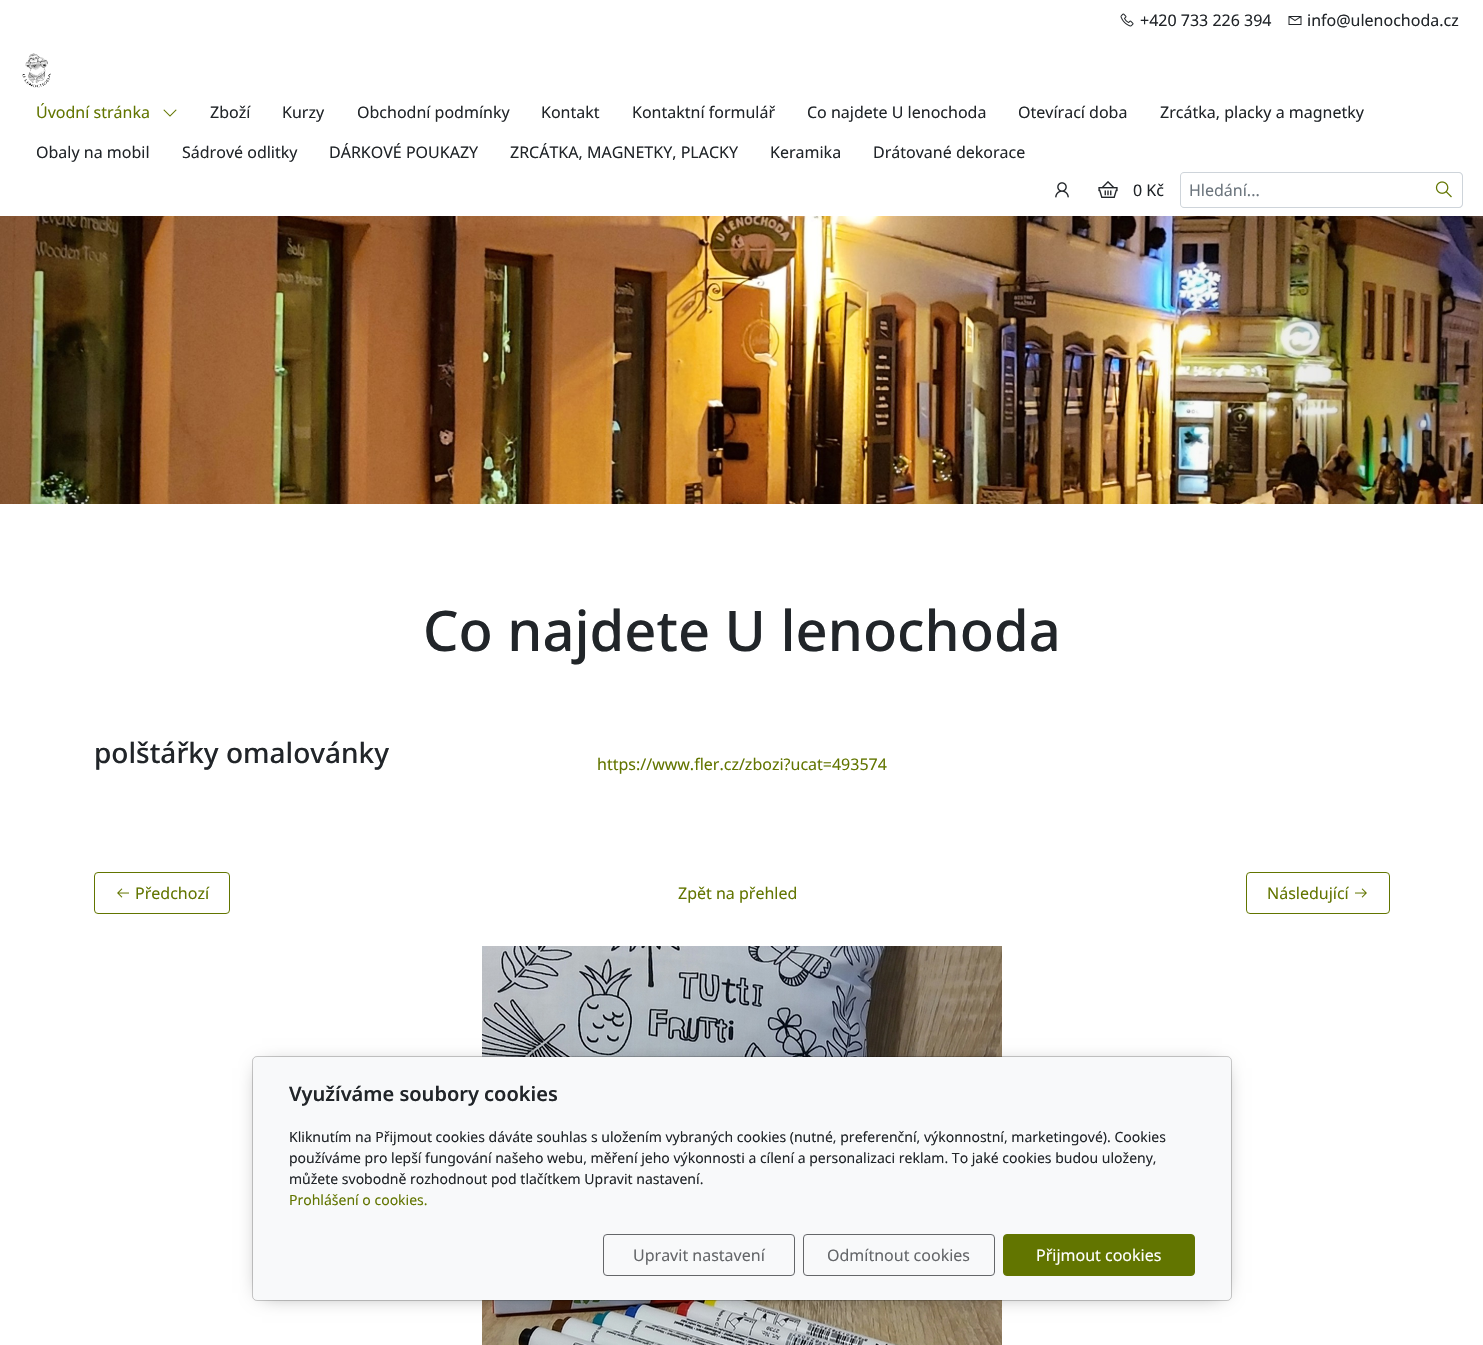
#include "include/core/SkBlurTypes.h"
#include "include/core/SkCanvas.h"
#include "include/core/SkData.h"
#include "include/core/SkFont.h"
#include "include/core/SkFontMgr.h"
#include "include/core/SkImage.h"
#include "include/core/SkMaskFilter.h"
#include "include/core/SkPaint.h"
#include "include/core/SkPathBuilder.h"
#include "include/core/SkTextBlob.h"
#include "include/effects/SkDashPathEffect.h"
#include "include/effects/SkGradientShader.h"
#include "include/utils/SkParsePath.h"

extern sk_sp<SkFontMgr> fontMgr;

void draw(SkCanvas* canvas) {
    SkPaint p;
    p.setAntiAlias(true);
    auto font = [&](const char* family, int weight, float size, bool italic = false) {
        SkFontStyle style(weight, SkFontStyle::kNormal_Width,
            italic ? SkFontStyle::kItalic_Slant : SkFontStyle::kUpright_Slant);
        SkFont result(fontMgr->matchFamilyStyle(family, style), size);
        result.setSubpixel(true);
        return result;
    };
    auto drawPhoto = [&](const char* path, float l, float t, float r, float b) {
        auto image = SkImages::DeferredFromEncodedData(SkData::MakeFromFileName(path));
        canvas->drawImageRect(image, SkRect::MakeLTRB(l, t, r, b), SkSamplingOptions());
    };
    canvas->clear(0xFFFFFFFF);
    drawPhoto("media/1.png", 1120, 13, 1134, 27);
    auto font1 = font("Noto Sans", 400, 16);
    p.setColor(0xFF212529);
    canvas->drawString("+420 733 226 394", 1140, 26, font1, p);
    drawPhoto("media/2.png", 1288, 16, 1302, 25);
    canvas->drawString("info@ulenochoda.cz", 1307, 26, font1, p);
    drawPhoto("media/3.png", 22, 53, 51, 88);
    p.setColor(0xFF627500);
    canvas->drawString("Úvodní stránka", 36, 118, font1, p);
    drawPhoto("media/4.png", 163, 109, 177, 117);
    p.setColor(0xFF212529);
    {
        const struct { const char* s; float x, y; } items[] = {
            {"Zboží", 210, 118},
            {"Kurzy", 282, 118},
            {"Obchodní podmínky", 357, 118},
            {"Kontakt", 541, 118},
            {"Kontaktní formulář", 632, 118},
            {"Co najdete U lenochoda", 807, 118},
            {"Otevírací doba", 1018, 118},
            {"Zrcátka, placky a magnetky", 1160, 118},
            {"Obaly na mobil", 36, 158},
            {"Sádrové odlitky", 182, 158},
            {"DÁRKOVÉ POUKAZY", 329, 158},
            {"ZRCÁTKA, MAGNETKY, PLACKY", 510, 158},
            {"Keramika", 770, 158},
            {"Drátované dekorace", 873, 158},
        };
        for (auto [s, x, y] : items) {
            canvas->drawString(s, x, y, font1, p);
        }
    }
    drawPhoto("media/5.png", 1055, 182, 1069, 198);
    drawPhoto("media/6.png", 1098, 181, 1118, 198);
    canvas->drawString("0 Kč", 1133, 196, font1, p);
    p.setColor(0xFFCED4DA);
    canvas->drawPath(SkPathBuilder(SkPathFillType::kEvenOdd).moveTo(1184, 172).lineTo(1426, 172).lineTo(1426, 208).lineTo(1184, 208).cubicTo(1182, 208, 1180, 206, 1180, 204).lineTo(1180, 176).cubicTo(1180, 174, 1182, 172, 1184, 172).close().moveTo(1184, 173).lineTo(1426, 173).lineTo(1426, 207).lineTo(1184, 207).cubicTo(1182, 207, 1181, 206, 1181, 204).lineTo(1181, 176).cubicTo(1181, 174, 1182, 173, 1184, 173).close().detach(), p);
    p.setColor(0xFF6C757D);
    canvas->drawString("Hledání...", 1189, 196, font1, p);
    p.setColor(0xFFCED4DA);
    canvas->drawPath(SkPathBuilder(SkPathFillType::kEvenOdd).moveTo(1426, 172).lineTo(1459, 172).cubicTo(1461, 172, 1463, 174, 1463, 176).lineTo(1463, 204).cubicTo(1463, 206, 1461, 208, 1459, 208).lineTo(1426, 208).close().moveTo(1426, 173).lineTo(1459, 173).cubicTo(1460.5f, 173, 1462, 174.5f, 1462, 176).lineTo(1462, 204).cubicTo(1462, 205.5f, 1460.5f, 207, 1459, 207).lineTo(1426, 207).close().detach(), p);
    drawPhoto("media/7.png", 1435, 181, 1452, 198);
    drawPhoto("media/8.png", 0, 216, 1483, 504);
    auto font2 = font("Noto Sans", 500, 56);
    p.setColor(0xFF212529);
    canvas->drawString("Co najdete U lenochoda", 423, 651, font2, p);
    auto font3 = font("Noto Sans", 500, 28);
    canvas->drawString("polštářky omalovánky", 94, 763, font3, p);
    p.setColor(0xFF627500);
    canvas->drawString("https://www.fler.cz/zbozi?ucat=493574", 597, 770, font1, p);
    p.setStyle(SkPaint::kStroke_Style);
    p.setStrokeWidth(1);
    canvas->drawRoundRect(SkRect::MakeLTRB(94.5f, 872.5f, 229.5f, 913.5f), 3.5f, 3.5f, p);
    drawPhoto("media/9.png", 117, 888, 129, 898);
    p.setStyle(SkPaint::kFill_Style);
    canvas->drawString("Předchozí", 135, 899, font1, p);
    canvas->drawString("Zpět na přehled", 678, 899, font1, p);
    p.setStyle(SkPaint::kStroke_Style);
    canvas->drawRoundRect(SkRect::MakeLTRB(1246.5f, 872.5f, 1389.5f, 913.5f), 3.5f, 3.5f, p);
    p.setStyle(SkPaint::kFill_Style);
    canvas->drawString("Následující", 1267, 899, font1, p);
    drawPhoto("media/10.png", 1355, 888, 1367, 898);
    drawPhoto("media/11.png", 482, 946, 1002, 1345);
    p.setColor(0x80000000);
    p.setMaskFilter(SkMaskFilter::MakeBlur(kNormal_SkBlurStyle, 10));
    canvas->drawRect(SkRect::MakeLTRB(262, 1068, 1222, 1293), p);
    p.setMaskFilter(nullptr);
    p.setColor(0xFFF8F9FA);
    canvas->drawRoundRect(SkRect::MakeLTRB(253, 1057, 1231, 1300), 4, 4, p);
    p.setStyle(SkPaint::kStroke_Style);
    p.setColor(0x33000000);
    canvas->drawRoundRect(SkRect::MakeLTRB(252.5f, 1056.5f, 1231.5f, 1300.5f), 4.5f, 4.5f, p);
    auto font4 = font("Noto Sans", 600, 20);
    p.setStyle(SkPaint::kFill_Style);
    p.setColor(0xFF212529);
    canvas->drawString("Využíváme soubory cookies", 289, 1101, font4, p);
    auto font5 = font("Noto Sans", 400, 14);
    {
        const struct { const char* s; float x, y; } items[] = {
            {"Kliknutím na Přijmout cookies dáváte souhlas s uložením vybraných cookies (nutné, preferenční, výkonnostní, marketingové). Cookies", 289, 1142},
            {"používáme pro lepší fungování našeho webu, měření jeho výkonnosti a cílení a personalizaci reklam. To jaké cookies budou uloženy,", 289, 1163},
            {"můžete svobodně rozhodnout pod tlačítkem Upravit nastavení.", 289, 1184},
        };
        for (auto [s, x, y] : items) {
            canvas->drawString(s, x, y, font5, p);
        }
    }
    p.setColor(0xFF627500);
    canvas->drawString("Prohlášení o cookies.", 289, 1205, font5, p);
    p.setStyle(SkPaint::kStroke_Style);
    p.setColor(0xFF646669);
    canvas->drawRoundRect(SkRect::MakeLTRB(603.5f, 1234.5f, 794.5f, 1275.5f), 3.5f, 3.5f, p);
    p.setStyle(SkPaint::kFill_Style);
    canvas->drawString("Upravit nastavení", 633, 1261, font1, p);
    p.setStyle(SkPaint::kStroke_Style);
    canvas->drawRoundRect(SkRect::MakeLTRB(803.5f, 1234.5f, 994.5f, 1275.5f), 3.5f, 3.5f, p);
    p.setStyle(SkPaint::kFill_Style);
    canvas->drawString("Odmítnout cookies", 827, 1261, font1, p);
    p.setColor(0xFF627500);
    canvas->drawRoundRect(SkRect::MakeLTRB(1003.5f, 1234.5f, 1194.5f, 1275.5f), 3.5f, 3.5f, p);
    p.setStyle(SkPaint::kStroke_Style);
    canvas->drawRoundRect(SkRect::MakeLTRB(1003.5f, 1234.5f, 1194.5f, 1275.5f), 3.5f, 3.5f, p);
    p.setStyle(SkPaint::kFill_Style);
    p.setColor(0xFFFFFFFF);
    canvas->drawString("Přijmout cookies", 1036, 1261, font1, p);
}
